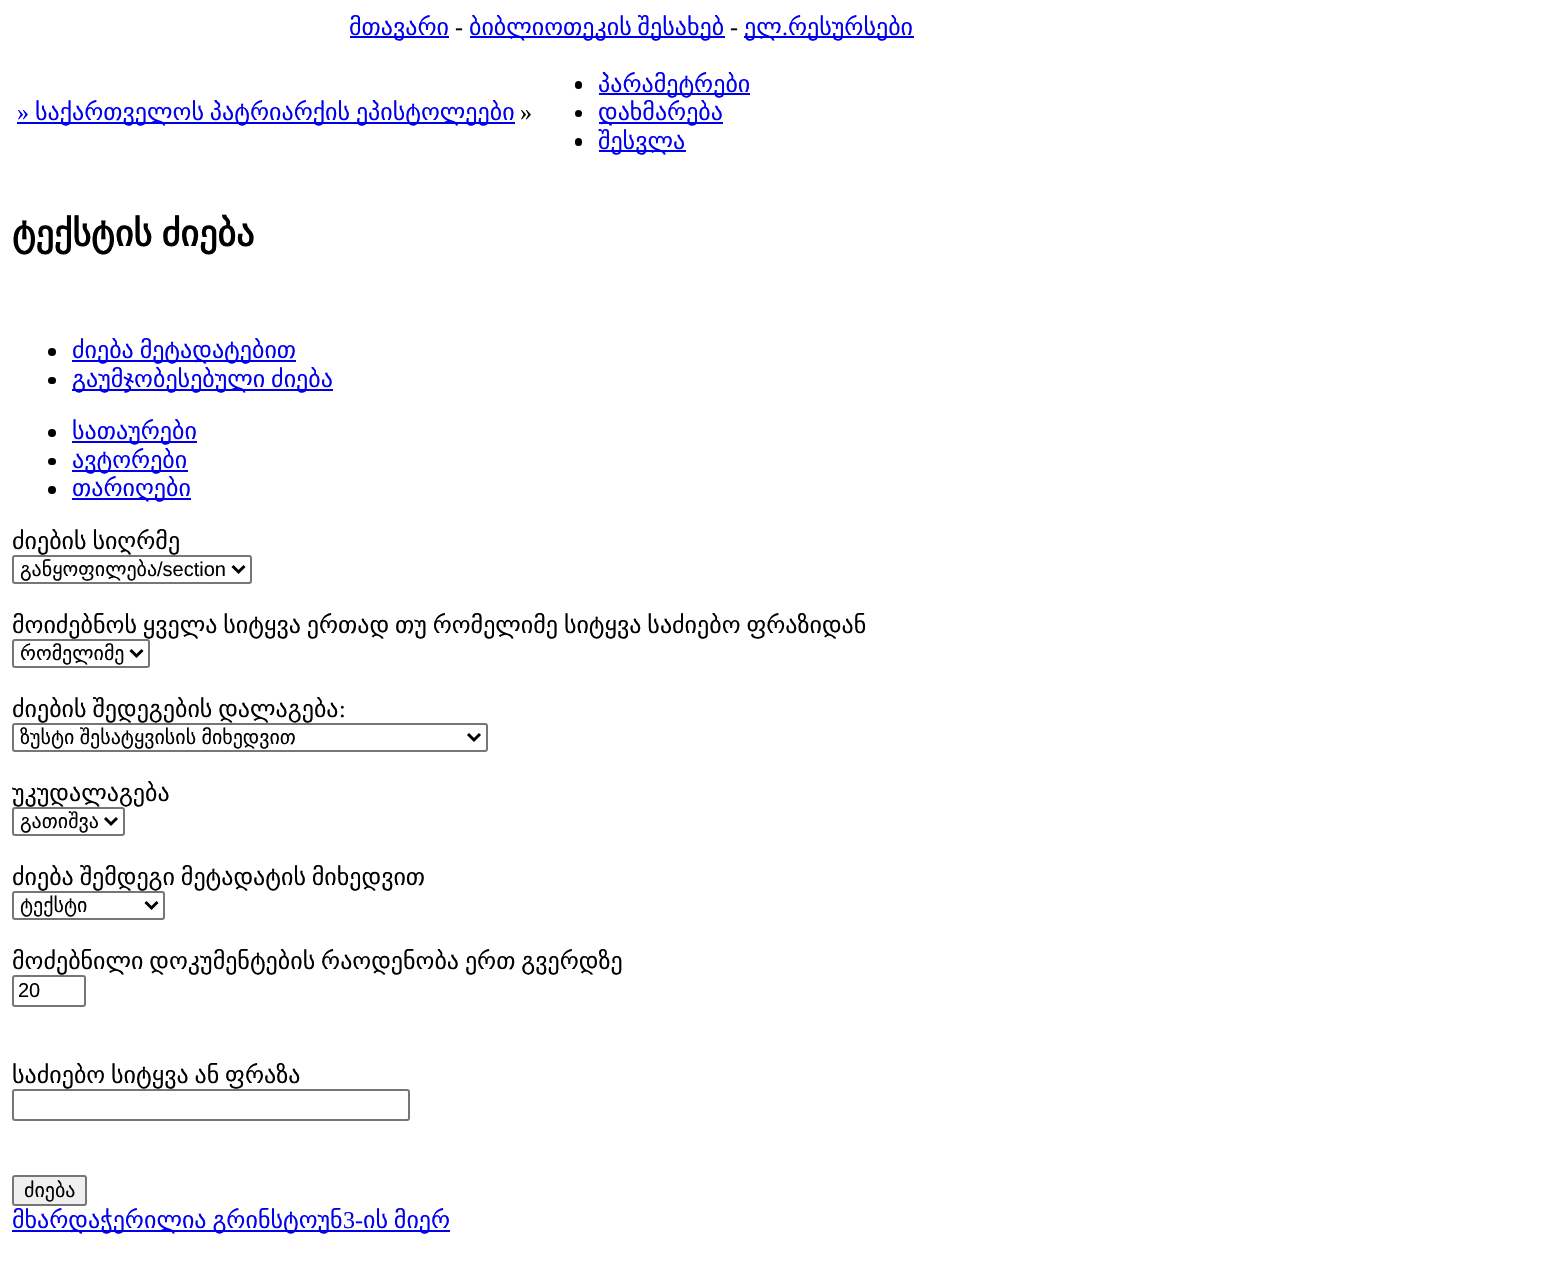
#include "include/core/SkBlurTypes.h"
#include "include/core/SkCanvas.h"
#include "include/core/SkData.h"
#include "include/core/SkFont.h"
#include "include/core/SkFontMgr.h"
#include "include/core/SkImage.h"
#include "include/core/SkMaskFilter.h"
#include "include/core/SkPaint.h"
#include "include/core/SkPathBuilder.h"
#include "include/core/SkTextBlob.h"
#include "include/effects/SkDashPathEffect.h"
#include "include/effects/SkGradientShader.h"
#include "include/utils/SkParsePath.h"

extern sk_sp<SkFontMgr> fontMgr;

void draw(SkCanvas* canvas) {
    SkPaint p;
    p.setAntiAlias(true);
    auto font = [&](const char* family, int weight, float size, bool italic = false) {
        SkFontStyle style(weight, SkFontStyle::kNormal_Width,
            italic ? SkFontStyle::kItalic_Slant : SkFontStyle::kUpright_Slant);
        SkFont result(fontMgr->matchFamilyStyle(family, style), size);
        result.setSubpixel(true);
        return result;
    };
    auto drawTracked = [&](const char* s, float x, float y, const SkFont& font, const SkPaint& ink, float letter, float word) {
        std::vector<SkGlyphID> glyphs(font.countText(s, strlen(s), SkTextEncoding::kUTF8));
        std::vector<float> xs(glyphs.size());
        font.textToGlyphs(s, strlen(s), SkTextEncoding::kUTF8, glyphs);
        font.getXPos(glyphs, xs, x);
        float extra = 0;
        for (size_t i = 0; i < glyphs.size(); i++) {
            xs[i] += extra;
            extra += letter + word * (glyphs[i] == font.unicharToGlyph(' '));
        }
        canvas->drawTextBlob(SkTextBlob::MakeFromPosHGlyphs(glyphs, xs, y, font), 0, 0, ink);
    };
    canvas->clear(0xFFFFFFFF);
    p.setColor(0xFF0000EE);
    canvas->drawRect(SkRect::MakeLTRB(350, 36, 449, 38), p);
    auto font1 = font("DejaVu Sans", 400, 24);
    canvas->drawString("მთავარი", 349, 35, font1, p);
    auto font2 = font("Liberation Serif", 400, 24);
    p.setColor(0xFF000000);
    canvas->drawString("-", 455, 35, font2, p);
    p.setColor(0xFF0000EE);
    canvas->drawRect(SkRect::MakeLTRB(470, 36, 725, 38), p);
    drawTracked("ბიბლიოთეკის შესახებ", 469, 35, font1, p, 0, -1.75f);
    p.setColor(0xFF000000);
    canvas->drawString("-", 730, 35, font2, p);
    p.setColor(0xFF0000EE);
    canvas->drawRect(SkRect::MakeLTRB(744, 36, 914, 38), p);
    canvas->drawString("ელ", 744, 35, font1, p);
    canvas->drawString("რესურსები", 788, 35, font1, p);
    canvas->drawString(".", 782, 35, font2, p);
    canvas->drawString("»", 17, 120, font2, p);
    canvas->drawRect(SkRect::MakeLTRB(17, 122, 515, 124), p);
    drawTracked("საქართველოს პატრიარქის ეპისტოლეები", 35, 120, font1, p, 0, -1.75f);
    p.setColor(0xFF000000);
    canvas->drawString("»", 520, 120, font2, p);
    canvas->drawRoundRect(SkRect::MakeLTRB(575, 81, 582, 89), 3.5f, 3.5f, p);
    p.setColor(0xFF0000EE);
    canvas->drawRect(SkRect::MakeLTRB(599, 93, 750, 95), p);
    canvas->drawString("პარამეტრები", 598, 92, font1, p);
    p.setColor(0xFF000000);
    canvas->drawCircle(578.5f, 113.5f, 3.5f, p);
    p.setColor(0xFF0000EE);
    canvas->drawRect(SkRect::MakeLTRB(599, 122, 723, 124), p);
    canvas->drawString("დახმარება", 598, 120, font1, p);
    p.setColor(0xFF000000);
    canvas->drawRoundRect(SkRect::MakeLTRB(575, 138, 582, 146), 3.5f, 3.5f, p);
    p.setColor(0xFF0000EE);
    canvas->drawRect(SkRect::MakeLTRB(599, 150, 686, 152), p);
    canvas->drawString("შესვლა", 598, 149, font1, p);
    auto font3 = font("DejaVu Sans", 700, 36);
    p.setColor(0xFF000000);
    drawTracked("ტექსტის ძიება", 12, 246, font3, p, 0, -2);
    canvas->drawCircle(52, 352, 4, p);
    p.setColor(0xFF0000EE);
    canvas->drawRect(SkRect::MakeLTRB(72, 360, 296, 362), p);
    drawTracked("ძიება მეტადატებით", 72, 358, font1, p, 0, -1.75f);
    p.setColor(0xFF000000);
    canvas->drawRoundRect(SkRect::MakeLTRB(48, 377, 56, 384), 3.5f, 3.5f, p);
    p.setColor(0xFF0000EE);
    canvas->drawRect(SkRect::MakeLTRB(72, 389, 333, 391), p);
    drawTracked("გაუმჯობესებული ძიება", 72, 387, font1, p, 0, -1.75f);
    p.setColor(0xFF000000);
    canvas->drawCircle(52, 433, 4, p);
    p.setColor(0xFF0000EE);
    canvas->drawRect(SkRect::MakeLTRB(72, 441, 197, 443), p);
    canvas->drawString("სათაურები", 72, 439, font1, p);
    p.setColor(0xFF000000);
    canvas->drawRoundRect(SkRect::MakeLTRB(48, 458, 56, 465), 3.5f, 3.5f, p);
    p.setColor(0xFF0000EE);
    canvas->drawRect(SkRect::MakeLTRB(72, 470, 188, 472), p);
    canvas->drawString("ავტორები", 72, 468, font1, p);
    p.setColor(0xFF000000);
    canvas->drawCircle(52, 490, 4, p);
    p.setColor(0xFF0000EE);
    canvas->drawRect(SkRect::MakeLTRB(72, 498, 191, 500), p);
    canvas->drawString("თარიღები", 72, 496, font1, p);
    p.setColor(0xFF000000);
    drawTracked("ძიების სიღრმე", 12, 549, font1, p, 0, -1.75f);
    p.setStyle(SkPaint::kStroke_Style);
    p.setStrokeWidth(2);
    p.setColor(0xFF767676);
    canvas->drawRoundRect(SkRect::MakeLTRB(13, 556, 251, 583), 2, 2, p);
    p.setStrokeWidth(3);
    p.setColor(0xFF000000);
    canvas->drawPath(SkPathBuilder().moveTo(232.5f, 566).lineTo(238.5f, 572).lineTo(244.5f, 566).detach(), p);
    auto font4 = font("DejaVu Sans", 400, 20);
    p.setStyle(SkPaint::kFill_Style);
    canvas->drawString("განყოფილება", 20, 576, font4, p);
    auto font5 = font("Liberation Sans", 400, 20);
    canvas->drawString("/section", 157, 576, font5, p);
    drawTracked("მოიძებნოს ყველა სიტყვა ერთად თუ რომელიმე სიტყვა საძიებო ფრაზიდან", 12, 633, font1, p, 0, -1.75f);
    p.setStyle(SkPaint::kStroke_Style);
    p.setStrokeWidth(2);
    p.setColor(0xFF767676);
    canvas->drawRoundRect(SkRect::MakeLTRB(13, 640, 149, 667), 2, 2, p);
    p.setStrokeWidth(3);
    p.setColor(0xFF000000);
    canvas->drawPath(SkPathBuilder().moveTo(130.5f, 650).lineTo(136.5f, 656).lineTo(142.5f, 650).detach(), p);
    p.setStyle(SkPaint::kFill_Style);
    canvas->drawString("რომელიმე", 20, 660, font4, p);
    drawTracked("ძიების შედეგების დალაგება", 12, 717, font1, p, 0, -1.75f);
    canvas->drawString(":", 339, 717, font2, p);
    p.setStyle(SkPaint::kStroke_Style);
    p.setStrokeWidth(2);
    p.setColor(0xFF767676);
    canvas->drawRoundRect(SkRect::MakeLTRB(13, 724, 487, 751), 2, 2, p);
    p.setStrokeWidth(3);
    p.setColor(0xFF000000);
    canvas->drawPath(SkPathBuilder().moveTo(468, 734).lineTo(474, 740).lineTo(480, 734).detach(), p);
    p.setStyle(SkPaint::kFill_Style);
    drawTracked("ზუსტი შესატყვისის მიხედვით", 20, 744, font4, p, 0, -1);
    canvas->drawString("უკუდალაგება", 12, 801, font1, p);
    p.setStyle(SkPaint::kStroke_Style);
    p.setStrokeWidth(2);
    p.setColor(0xFF767676);
    canvas->drawRoundRect(SkRect::MakeLTRB(13, 808, 124, 835), 2, 2, p);
    p.setStrokeWidth(3);
    p.setColor(0xFF000000);
    canvas->drawPath(SkPathBuilder().moveTo(105, 818).lineTo(111, 824).lineTo(117, 818).detach(), p);
    p.setStyle(SkPaint::kFill_Style);
    canvas->drawString("გათიშვა", 20, 828, font4, p);
    drawTracked("ძიება შემდეგი მეტადატის მიხედვით", 12, 885, font1, p, 0, -1.75f);
    p.setStyle(SkPaint::kStroke_Style);
    p.setStrokeWidth(2);
    p.setColor(0xFF767676);
    canvas->drawRoundRect(SkRect::MakeLTRB(13, 892, 164, 919), 2, 2, p);
    p.setStrokeWidth(3);
    p.setColor(0xFF000000);
    canvas->drawPath(SkPathBuilder().moveTo(145.5f, 902).lineTo(151.5f, 908).lineTo(157.5f, 902).detach(), p);
    p.setStyle(SkPaint::kFill_Style);
    canvas->drawString("ტექსტი", 20, 912, font4, p);
    drawTracked("მოძებნილი დოკუმენტების რაოდენობა ერთ გვერდზე", 12, 969, font1, p, 0, -1.75f);
    p.setStyle(SkPaint::kStroke_Style);
    p.setStrokeWidth(2);
    p.setColor(0xFF767676);
    canvas->drawRoundRect(SkRect::MakeLTRB(13, 976, 85, 1006), 2, 2, p);
    p.setStyle(SkPaint::kFill_Style);
    p.setColor(0xFF000000);
    canvas->drawString("20", 18, 997, font5, p);
    drawTracked("საძიებო სიტყვა ან ფრაზა", 12, 1083, font1, p, 0, -1.75f);
    p.setStyle(SkPaint::kStroke_Style);
    p.setColor(0xFF767676);
    canvas->drawRoundRect(SkRect::MakeLTRB(13, 1090, 409, 1120), 2, 2, p);
    p.setStyle(SkPaint::kFill_Style);
    p.setColor(0xFFEFEFEF);
    canvas->drawRoundRect(SkRect::MakeLTRB(13, 1176, 86, 1205), 2, 2, p);
    p.setStyle(SkPaint::kStroke_Style);
    p.setColor(0xFF767676);
    canvas->drawRoundRect(SkRect::MakeLTRB(13, 1176, 86, 1205), 2, 2, p);
    p.setStyle(SkPaint::kFill_Style);
    p.setColor(0xFF000000);
    canvas->drawString("ძიება", 24, 1197, font4, p);
    p.setColor(0xFF0000EE);
    canvas->drawRect(SkRect::MakeLTRB(12, 1230, 450, 1232), p);
    drawTracked("მხარდაჭერილია გრინსტოუნ", 12, 1228, font1, p, 0, -1.75f);
    canvas->drawString("3-", 343, 1228, font2, p);
    drawTracked("ის მიერ", 363, 1228, font1, p, 0, -1.75f);
}
